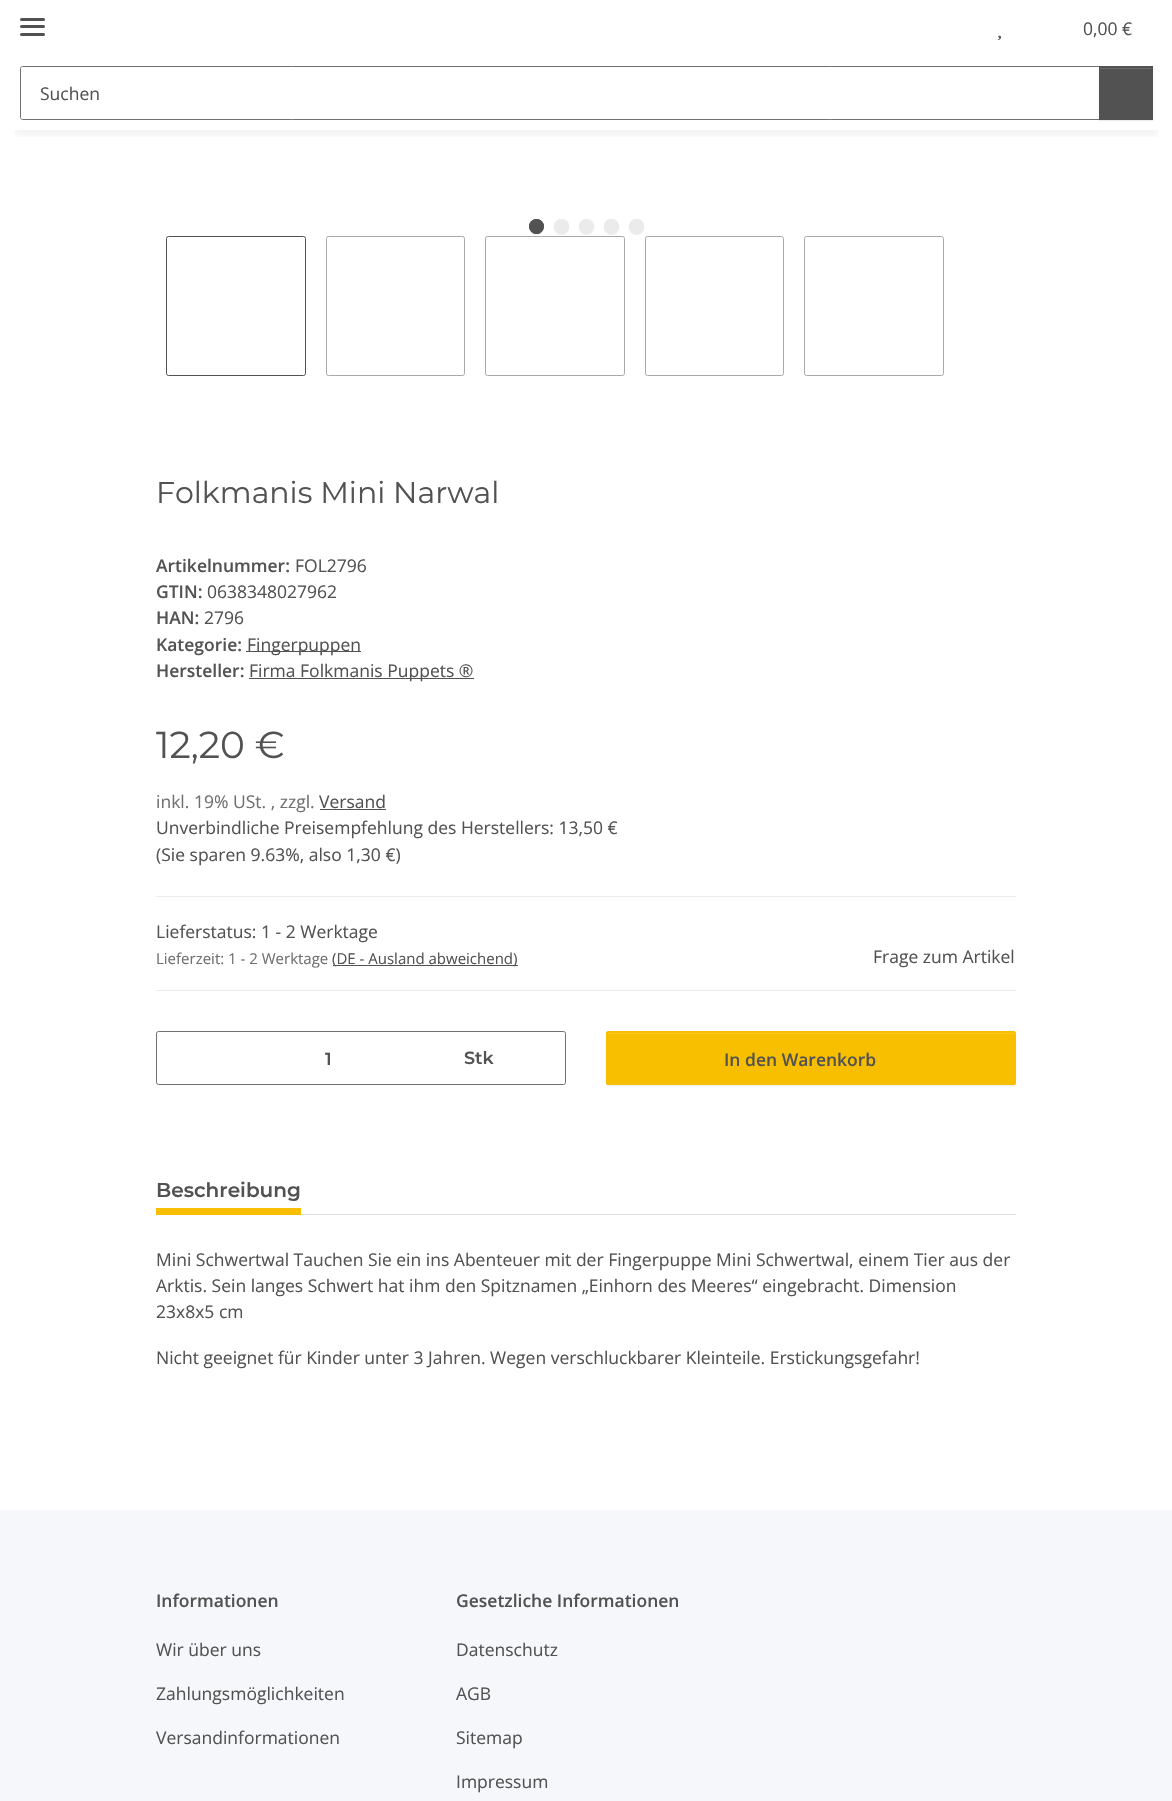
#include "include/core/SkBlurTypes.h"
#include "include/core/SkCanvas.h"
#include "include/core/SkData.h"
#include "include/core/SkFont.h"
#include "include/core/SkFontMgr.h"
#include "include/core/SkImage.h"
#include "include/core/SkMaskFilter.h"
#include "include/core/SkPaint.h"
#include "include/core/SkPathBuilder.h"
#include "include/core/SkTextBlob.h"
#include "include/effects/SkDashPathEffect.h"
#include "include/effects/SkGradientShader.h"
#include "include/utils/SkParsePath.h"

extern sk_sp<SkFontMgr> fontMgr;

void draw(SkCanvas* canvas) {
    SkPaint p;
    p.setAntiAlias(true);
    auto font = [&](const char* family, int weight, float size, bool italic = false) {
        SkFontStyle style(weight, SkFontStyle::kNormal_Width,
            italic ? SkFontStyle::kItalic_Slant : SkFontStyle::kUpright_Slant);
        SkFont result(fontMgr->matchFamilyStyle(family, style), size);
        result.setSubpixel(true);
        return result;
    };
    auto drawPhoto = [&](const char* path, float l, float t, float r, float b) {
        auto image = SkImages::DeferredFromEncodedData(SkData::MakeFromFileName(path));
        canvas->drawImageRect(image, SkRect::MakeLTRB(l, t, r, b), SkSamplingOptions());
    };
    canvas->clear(0xFFF5F7FA);
    p.setColor(0xFFFFFFFF);
    canvas->drawRect(SkRect::MakeLTRB(0, 0, 1172, 1510), p);
    canvas->save();
    canvas->clipRect(SkRect::MakeLTRB(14, 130, 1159, 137));
    p.setColor(0x0F000000);
    p.setMaskFilter(SkMaskFilter::MakeBlur(kNormal_SkBlurStyle, 5.5f));
    canvas->drawRect(SkRect::MakeLTRB(15, 35, 1158, 135), p);
    p.setMaskFilter(nullptr);
    canvas->restore();
    p.setColor(0xFF525252);
    canvas->drawRoundRect(SkRect::MakeLTRB(20, 25, 45, 28), 1.5f, 1.5f, p);
    canvas->drawRoundRect(SkRect::MakeLTRB(20, 18, 45, 21), 1.5f, 1.5f, p);
    canvas->drawRoundRect(SkRect::MakeLTRB(20, 33, 45, 36), 1.5f, 1.5f, p);
    drawPhoto("media/1.png", 997, 35, 1001, 40);
    auto font1 = font("Open Sans", 400, 17.5f);
    canvas->drawString("0,00 €", 1083, 35, font1, p);
    p.setStyle(SkPaint::kStroke_Style);
    p.setStrokeWidth(1);
    p.setColor(0xFF707070);
    canvas->drawPath(SkPathBuilder().moveTo(22.5f, 66.5f).lineTo(1099.5f, 66.5f).lineTo(1099.5f, 119.5f).lineTo(22.5f, 119.5f).cubicTo(21.5f, 119.5f, 20.5f, 118.5f, 20.5f, 117.5f).lineTo(20.5f, 68.5f).cubicTo(20.5f, 67.5f, 21.5f, 66.5f, 22.5f, 66.5f).close().detach(), p);
    p.setStyle(SkPaint::kFill_Style);
    p.setColor(0xFF525252);
    canvas->drawString("Suchen", 40, 100, font1, p);
    p.setColor(0x12000000);
    p.setMaskFilter(SkMaskFilter::MakeBlur(kNormal_SkBlurStyle, 0.5f));
    canvas->drawRect(SkRect::MakeLTRB(1099, 68, 1153, 121), p);
    p.setMaskFilter(nullptr);
    p.setColor(0xFF525252);
    canvas->drawRect(SkRect::MakeLTRB(1099, 66, 1153, 120), p);
    p.setColor(0xFF6C6C6C);
    canvas->drawRect(SkRect::MakeLTRB(1100, 68, 1151, 69), p);
    p.setColor(0x12000000);
    p.setMaskFilter(SkMaskFilter::MakeBlur(kNormal_SkBlurStyle, 0.5f));
    canvas->drawRoundRect(SkRect::MakeLTRB(529, 220, 544, 235), 7.5f, 7.5f, p);
    p.setMaskFilter(nullptr);
    p.setColor(0xFF525252);
    canvas->drawCircle(536.5f, 226.5f, 7.5f, p);
    p.setColor(0xFF6C6C6C);
    canvas->drawPath(SkPathBuilder().moveTo(536, 222).cubicTo(538.5f, 222, 540.5f, 223.5f, 541, 225).cubicTo(539.5f, 217.5f, 528, 221.5f, 531.5f, 228.5f).cubicTo(531, 225.5f, 532.5f, 222, 536, 222).close().detach(), p);
    p.setStyle(SkPaint::kStroke_Style);
    p.setStrokeWidth(3);
    p.setColor(0xFF525252);
    canvas->drawCircle(536.5f, 226.5f, 6, p);
    p.setStyle(SkPaint::kFill_Style);
    p.setColor(0x12000000);
    p.setMaskFilter(SkMaskFilter::MakeBlur(kNormal_SkBlurStyle, 0.5f));
    canvas->drawRoundRect(SkRect::MakeLTRB(554, 220, 569, 235), 7.5f, 7.5f, p);
    p.setMaskFilter(nullptr);
    p.setColor(0xFFEBEBEB);
    canvas->drawCircle(561.5f, 226.5f, 7.5f, p);
    p.setColor(0xFFEEEEEE);
    canvas->drawPath(SkPathBuilder().moveTo(561, 222).cubicTo(563.5f, 222, 565.5f, 223.5f, 566, 225).cubicTo(564.5f, 217.5f, 553, 221.5f, 556.5f, 228.5f).cubicTo(556, 225.5f, 557.5f, 222, 561, 222).close().detach(), p);
    p.setStyle(SkPaint::kStroke_Style);
    p.setColor(0xFFEBEBEB);
    canvas->drawCircle(561.5f, 226.5f, 6, p);
    p.setStyle(SkPaint::kFill_Style);
    p.setColor(0x12000000);
    p.setMaskFilter(SkMaskFilter::MakeBlur(kNormal_SkBlurStyle, 0.5f));
    canvas->drawRoundRect(SkRect::MakeLTRB(579, 220, 594, 235), 7.5f, 7.5f, p);
    p.setMaskFilter(nullptr);
    p.setColor(0xFFEBEBEB);
    canvas->drawCircle(586.5f, 226.5f, 7.5f, p);
    p.setColor(0xFFEEEEEE);
    canvas->drawPath(SkPathBuilder().moveTo(586, 222).cubicTo(588.5f, 222, 590.5f, 223.5f, 591, 225).cubicTo(589.5f, 217.5f, 578, 221.5f, 581.5f, 228.5f).cubicTo(581, 225.5f, 582.5f, 222, 586, 222).close().detach(), p);
    p.setStyle(SkPaint::kStroke_Style);
    p.setColor(0xFFEBEBEB);
    canvas->drawCircle(586.5f, 226.5f, 6, p);
    p.setStyle(SkPaint::kFill_Style);
    p.setColor(0x12000000);
    p.setMaskFilter(SkMaskFilter::MakeBlur(kNormal_SkBlurStyle, 0.5f));
    canvas->drawRoundRect(SkRect::MakeLTRB(604, 220, 619, 235), 7.5f, 7.5f, p);
    p.setMaskFilter(nullptr);
    p.setColor(0xFFEBEBEB);
    canvas->drawCircle(611.5f, 226.5f, 7.5f, p);
    p.setColor(0xFFEEEEEE);
    canvas->drawPath(SkPathBuilder().moveTo(611, 222).cubicTo(613.5f, 222, 615.5f, 223.5f, 616, 225).cubicTo(614.5f, 217.5f, 603, 221.5f, 606.5f, 228.5f).cubicTo(606, 225.5f, 607.5f, 222, 611, 222).close().detach(), p);
    p.setStyle(SkPaint::kStroke_Style);
    p.setColor(0xFFEBEBEB);
    canvas->drawCircle(611.5f, 226.5f, 6, p);
    p.setStyle(SkPaint::kFill_Style);
    p.setColor(0x12000000);
    p.setMaskFilter(SkMaskFilter::MakeBlur(kNormal_SkBlurStyle, 0.5f));
    canvas->drawRoundRect(SkRect::MakeLTRB(629, 220, 644, 235), 7.5f, 7.5f, p);
    p.setMaskFilter(nullptr);
    p.setColor(0xFFEBEBEB);
    canvas->drawCircle(636.5f, 226.5f, 7.5f, p);
    p.setColor(0xFFEEEEEE);
    canvas->drawPath(SkPathBuilder().moveTo(636, 222).cubicTo(638.5f, 222, 640.5f, 223.5f, 641, 225).cubicTo(639.5f, 217.5f, 628, 221.5f, 631.5f, 228.5f).cubicTo(631, 225.5f, 632.5f, 222, 636, 222).close().detach(), p);
    p.setStyle(SkPaint::kStroke_Style);
    p.setColor(0xFFEBEBEB);
    canvas->drawCircle(636.5f, 226.5f, 6, p);
    p.setStrokeWidth(1);
    p.setColor(0xFF525252);
    canvas->drawRoundRect(SkRect::MakeLTRB(166.5f, 236.5f, 305.5f, 375.5f), 2, 2, p);
    p.setColor(0xFFA9A9A9);
    canvas->drawRoundRect(SkRect::MakeLTRB(326.5f, 236.5f, 464.5f, 375.5f), 2, 2, p);
    p.setColor(0xFFA8A8A8);
    canvas->drawRoundRect(SkRect::MakeLTRB(485.5f, 236.5f, 624.5f, 375.5f), 2, 2, p);
    p.setColor(0xFFA9A9A9);
    canvas->drawRoundRect(SkRect::MakeLTRB(645.5f, 236.5f, 783.5f, 375.5f), 2, 2, p);
    canvas->drawRoundRect(SkRect::MakeLTRB(804.5f, 236.5f, 943.5f, 375.5f), 2, 2, p);
    auto font2 = font("Montserrat", 400, 30);
    p.setStyle(SkPaint::kFill_Style);
    p.setColor(0xFF525252);
    canvas->drawString("Folkmanis Mini Narwal", 156, 503, font2, p);
    auto font3 = font("Open Sans", 600, 17.5f);
    canvas->drawString("Artikelnummer:", 156, 572, font3, p);
    canvas->drawString("FOL2796", 295, 572, font1, p);
    canvas->drawString("GTIN:", 156, 598, font3, p);
    canvas->drawString("0638348027962", 207, 598, font1, p);
    canvas->drawString("HAN:", 156, 624, font3, p);
    canvas->drawString("2796", 204, 624, font1, p);
    canvas->drawString("Kategorie:", 156, 651, font3, p);
    canvas->drawRect(SkRect::MakeLTRB(246, 651, 361, 652), p);
    canvas->drawString("Fingerpuppen", 247, 651, font1, p);
    canvas->drawString("Hersteller:", 156, 677, font3, p);
    canvas->drawRect(SkRect::MakeLTRB(249, 678, 474, 679), p);
    canvas->drawString("Firma Folkmanis Puppets ®", 249, 677, font1, p);
    auto font4 = font("Montserrat", 400, 37.5f);
    canvas->drawString("12,20 €", 156, 758, font4, p);
    p.setColor(0xFF707070);
    canvas->drawString("inkl. 19% USt. , zzgl.", 156, 808, font1, p);
    p.setColor(0xFF525252);
    canvas->drawString("Versand", 319, 808, font1, p);
    canvas->drawRect(SkRect::MakeLTRB(320, 809, 386, 810), p);
    canvas->drawString("Unverbindliche Preisempfehlung des Herstellers: 13,50 €", 156, 834, font1, p);
    canvas->drawString("(Sie sparen 9.63%, also 1,30 €)", 156, 861, font1, p);
    p.setColor(0xFFEBEBEB);
    canvas->drawRect(SkRect::MakeLTRB(156, 896, 1016, 897), p);
    canvas->drawRect(SkRect::MakeLTRB(156, 990, 1016, 991), p);
    p.setColor(0xFF525252);
    canvas->drawString("Lieferstatus: 1 - 2 Werktage", 156, 938, font1, p);
    auto font5 = font("Open Sans", 400, 15);
    p.setColor(0xFF707070);
    canvas->drawString("Lieferzeit: 1 - 2 Werktage", 156, 964, font5, p);
    p.setColor(0xFF525252);
    canvas->drawRect(SkRect::MakeLTRB(333, 965, 518, 966), p);
    canvas->drawString("(DE - Ausland abweichend)", 332, 964, font5, p);
    canvas->drawString("Frage zum Artikel", 873, 963, font1, p);
    p.setStyle(SkPaint::kStroke_Style);
    p.setColor(0xFF707070);
    canvas->drawRoundRect(SkRect::MakeLTRB(156.5f, 1031.5f, 565.5f, 1084.5f), 2, 2, p);
    auto font6 = font("Montserrat", 600, 17.5f);
    p.setStyle(SkPaint::kFill_Style);
    p.setColor(0xFF525252);
    canvas->drawString("1", 325, 1065, font6, p);
    canvas->drawString("Stk", 464, 1064, font6, p);
    p.setColor(0x12000000);
    p.setMaskFilter(SkMaskFilter::MakeBlur(kNormal_SkBlurStyle, 0.5f));
    canvas->drawRoundRect(SkRect::MakeLTRB(606, 1033, 1016, 1086), 2.5f, 2.5f, p);
    p.setMaskFilter(nullptr);
    p.setColor(0xFFF8BF00);
    canvas->drawRoundRect(SkRect::MakeLTRB(606, 1031, 1016, 1085), 2.5f, 2.5f, p);
    p.setColor(0xFFF9C926);
    canvas->drawPath(SkPathBuilder().moveTo(609, 1034).lineTo(1014, 1034).lineTo(1015, 1035).lineTo(1015, 1033).lineTo(812, 1033).lineTo(609, 1033).lineTo(608, 1034).lineTo(608, 1035).cubicTo(608, 1034, 608, 1034, 609, 1034).close().detach(), p);
    p.setStyle(SkPaint::kStroke_Style);
    p.setColor(0xFFF8BF00);
    canvas->drawRoundRect(SkRect::MakeLTRB(606.5f, 1031.5f, 1015.5f, 1084.5f), 2, 2, p);
    p.setStyle(SkPaint::kFill_Style);
    p.setColor(0xFF525252);
    canvas->drawString("In den Warenkorb", 724, 1066, font3, p);
    p.setColor(0xFFDEE2E6);
    canvas->drawRect(SkRect::MakeLTRB(301, 1214, 1016, 1215), p);
    auto font7 = font("Montserrat", 600, 20);
    p.setColor(0xFF525252);
    canvas->drawString("Beschreibung", 156, 1197, font7, p);
    p.setColor(0xFFF8BF00);
    canvas->drawRect(SkRect::MakeLTRB(156, 1208, 301, 1215), p);
    p.setColor(0xFF525252);
    {
        const struct { const char* s; float x, y; } items[] = {
            {"Mini Schwertwal Tauchen Sie ein ins Abenteuer mit der Fingerpuppe Mini Schwertwal, einem Tier aus der", 156, 1266},
            {"Arktis. Sein langes Schwert hat ihm den Spitznamen „Einhorn des Meeres“ eingebracht. Dimension", 156, 1292},
            {"23x8x5 cm", 156, 1318},
            {"Nicht geeignet für Kinder unter 3 Jahren. Wegen verschluckbarer Kleinteile. Erstickungsgefahr!", 156, 1364},
        };
        for (auto [s, x, y] : items) {
            canvas->drawString(s, x, y, font1, p);
        }
    }
    canvas->drawString("Informationen", 156, 1607, font3, p);
    {
        const struct { const char* s; float x, y; } items[] = {
            {"Wir über uns", 156, 1656},
            {"Zahlungsmöglichkeiten", 156, 1700},
            {"Versandinformationen", 156, 1744},
        };
        for (auto [s, x, y] : items) {
            canvas->drawString(s, x, y, font1, p);
        }
    }
    canvas->drawString("Gesetzliche Informationen", 456, 1607, font3, p);
    {
        const struct { const char* s; float x, y; } items[] = {
            {"Datenschutz", 456, 1656},
            {"AGB", 456, 1700},
            {"Sitemap", 456, 1744},
            {"Impressum", 456, 1788},
        };
        for (auto [s, x, y] : items) {
            canvas->drawString(s, x, y, font1, p);
        }
    }
}
